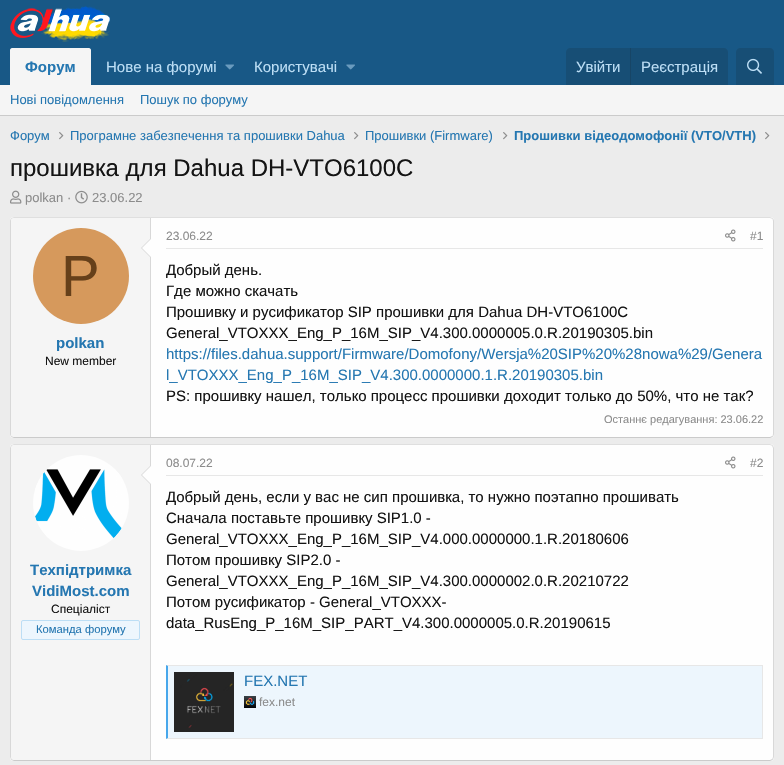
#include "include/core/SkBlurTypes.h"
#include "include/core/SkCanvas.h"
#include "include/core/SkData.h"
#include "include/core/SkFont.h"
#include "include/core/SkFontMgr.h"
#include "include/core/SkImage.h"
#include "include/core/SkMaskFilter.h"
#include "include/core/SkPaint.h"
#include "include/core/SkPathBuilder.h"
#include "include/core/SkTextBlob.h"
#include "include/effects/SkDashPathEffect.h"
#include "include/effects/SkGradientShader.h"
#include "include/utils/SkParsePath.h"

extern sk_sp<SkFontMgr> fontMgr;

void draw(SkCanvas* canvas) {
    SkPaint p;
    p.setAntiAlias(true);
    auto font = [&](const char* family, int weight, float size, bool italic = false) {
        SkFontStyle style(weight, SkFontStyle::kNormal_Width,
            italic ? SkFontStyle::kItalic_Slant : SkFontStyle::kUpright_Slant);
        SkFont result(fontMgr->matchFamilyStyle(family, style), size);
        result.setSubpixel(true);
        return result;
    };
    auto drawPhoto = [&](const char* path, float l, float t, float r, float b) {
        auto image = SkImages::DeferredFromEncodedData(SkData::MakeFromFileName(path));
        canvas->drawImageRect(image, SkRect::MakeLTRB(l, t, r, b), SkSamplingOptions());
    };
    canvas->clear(0xFFECECEC);
    p.setColor(0xFF185886);
    canvas->drawRect(SkRect::MakeLTRB(0, 0, 784, 85), p);
    drawPhoto("media/1.png", 10, 6, 110, 42);
    p.setColor(0xFFF5F5F5);
    canvas->drawPath(SkPathBuilder().moveTo(12, 48).lineTo(89, 48).cubicTo(90, 48, 91, 49, 91, 50).lineTo(91, 85).lineTo(10, 85).lineTo(10, 50).cubicTo(10, 49, 11, 48, 12, 48).close().detach(), p);
    auto font1 = font("Liberation Sans", 700, 15);
    p.setColor(0xFF2577B1);
    canvas->drawString("Форум", 25, 72, font1, p);
    auto font2 = font("Liberation Sans", 400, 15);
    p.setColor(0xFFBCDEF5);
    canvas->drawString("Нове на форумі", 106, 72, font2, p);
    drawPhoto("media/2.png", 225, 64, 234, 70);
    canvas->drawString("Користувачі", 254, 72, font2, p);
    drawPhoto("media/2.png", 346, 64, 355, 70);
    p.setColor(0xFF174E75);
    canvas->drawPath(SkPathBuilder().moveTo(570, 48).lineTo(724, 48).cubicTo(726, 48, 728, 50, 728, 52).lineTo(728, 85).lineTo(566, 85).lineTo(566, 52).cubicTo(566, 50, 568, 48, 570, 48).close().detach(), p);
    p.setColor(0xFFBCDEF5);
    canvas->drawString("Увійти", 576, 72, font2, p);
    p.setColor(0xFF174566);
    canvas->drawRect(SkRect::MakeLTRB(630, 48, 631, 85), p);
    p.setColor(0xFFBCDEF5);
    canvas->drawString("Реєстрація", 641, 72, font2, p);
    p.setColor(0xFF174E75);
    canvas->drawPath(SkPathBuilder().moveTo(740, 48).lineTo(770, 48).cubicTo(772, 48, 774, 50, 774, 52).lineTo(774, 85).lineTo(736, 85).lineTo(736, 52).cubicTo(736, 50, 738, 48, 740, 48).close().detach(), p);
    drawPhoto("media/3.png", 747, 58, 762, 74);
    p.setColor(0xFFF5F5F5);
    canvas->drawRect(SkRect::MakeLTRB(0, 85, 784, 115), p);
    p.setColor(0xFFCBCBCB);
    canvas->drawRect(SkRect::MakeLTRB(0, 115, 784, 116), p);
    auto font3 = font("Liberation Sans", 400, 13);
    p.setColor(0xFF2577B1);
    {
        const struct { const char* s; float x, y; } items[] = {
            {"Нові повідомлення", 10, 104},
            {"Пошук по форуму", 140, 104},
            {"Форум", 10, 140},
        };
        for (auto [s, x, y] : items) {
            canvas->drawString(s, x, y, font3, p);
        }
    }
    drawPhoto("media/4.png", 59, 132, 64, 140);
    canvas->drawString("Програмне забезпечення та прошивки Dahua", 70, 140, font3, p);
    drawPhoto("media/4.png", 354, 132, 359, 140);
    canvas->drawString("Прошивки (Firmware)", 365, 140, font3, p);
    drawPhoto("media/4.png", 503, 132, 508, 140);
    auto font4 = font("Liberation Sans", 700, 13);
    canvas->drawString("Прошивки відеодомофонії (VTO/VTH)", 514, 140, font4, p);
    drawPhoto("media/4.png", 765, 132, 770, 140);
    auto font5 = font("Liberation Sans", 400, 24);
    p.setColor(0xFF141414);
    canvas->drawString("прошивка для Dahua DH-VTO6100C", 10, 176, font5, p);
    drawPhoto("media/5.png", 10, 190, 22, 204);
    p.setColor(0xFF8C8C8C);
    canvas->drawString("polkan ·", 25, 202, font3, p);
    drawPhoto("media/6.png", 75, 190, 88, 204);
    canvas->drawString("23.06.22", 92, 202, font3, p);
    p.setColor(0xFFFEFEFE);
    canvas->drawRoundRect(SkRect::MakeLTRB(10, 217, 774, 438), 4, 4, p);
    p.setStyle(SkPaint::kStroke_Style);
    p.setStrokeWidth(1);
    p.setColor(0xFFDFDFDF);
    canvas->drawPath(SkPathBuilder().moveTo(11.5f, 218.5f).lineTo(14, 217.5f).lineTo(770, 217.5f).lineTo(772.5f, 218.5f).detach(), p);
    p.setColor(0xFFD8D8D8);
    canvas->drawPath(SkPathBuilder().moveTo(772.5f, 218.5f).cubicTo(773, 219, 773.5f, 220, 773.5f, 221).lineTo(773.5f, 434).cubicTo(773.5f, 435, 773, 436, 772.5f, 436.5f).detach(), p);
    p.setColor(0xFFCBCBCB);
    canvas->drawPath(SkPathBuilder().moveTo(772.5f, 436.5f).lineTo(770, 437.5f).lineTo(14, 437.5f).lineTo(11.5f, 436.5f).detach(), p);
    p.setColor(0xFFD8D8D8);
    canvas->drawPath(SkPathBuilder().moveTo(11.5f, 436.5f).cubicTo(11, 436, 10.5f, 435, 10.5f, 434).lineTo(10.5f, 221).cubicTo(10.5f, 220, 11, 219, 11.5f, 218.5f).detach(), p);
    p.setStyle(SkPaint::kFill_Style);
    p.setColor(0xFFF5F5F5);
    canvas->drawPath(SkPathBuilder().moveTo(14, 218).lineTo(151, 218).lineTo(151, 437).lineTo(14, 437).cubicTo(12.5f, 437, 11, 435.5f, 11, 434).lineTo(11, 221).cubicTo(11, 219.5f, 12.5f, 218, 14, 218).close().detach(), p);
    p.setColor(0xFFD8D8D8);
    canvas->drawRect(SkRect::MakeLTRB(150, 218, 151, 437), p);
    canvas->drawPath(SkPathBuilder().moveTo(151, 238).lineTo(151, 258).lineTo(141, 248).close().detach(), p);
    p.setColor(0xFFFEFEFE);
    canvas->drawPath(SkPathBuilder().moveTo(151, 239).lineTo(151, 257).lineTo(142, 248).close().detach(), p);
    p.setColor(0xFFD6995C);
    canvas->drawCircle(81, 276, 48, p);
    auto font6 = font("Liberation Sans", 400, 58);
    p.setColor(0xFF66401A);
    canvas->drawString("P", 61, 296, font6, p);
    p.setColor(0xFF2577B1);
    canvas->drawString("polkan", 56, 348, font1, p);
    auto font7 = font("Liberation Sans", 400, 12);
    p.setColor(0xFF141414);
    canvas->drawString("New member", 45, 365, font7, p);
    p.setColor(0xFFE7E7E7);
    canvas->drawRect(SkRect::MakeLTRB(166, 248, 763, 249), p);
    p.setColor(0xFF8C8C8C);
    canvas->drawString("23.06.22", 166, 240, font7, p);
    drawPhoto("media/7.png", 725, 229, 736, 242);
    canvas->drawString("#1", 750, 240, font7, p);
    p.setColor(0xFF141414);
    {
        const struct { const char* s; float x, y; } items[] = {
            {"Добрый день.", 166, 275},
            {"Где можно скачать", 166, 296},
            {"Прошивку и русификатор SIP прошивки для Dahua DH-VTO6100C", 166, 317},
            {"General_VTOXXX_Eng_P_16M_SIP_V4.300.0000005.0.R.20190305.bin", 166, 338},
        };
        for (auto [s, x, y] : items) {
            canvas->drawString(s, x, y, font2, p);
        }
    }
    p.setColor(0xFF2577B1);
    canvas->drawString("https://files.dahua.support/Firmware/Domofony/Wersja%20SIP%20%28nowa%29/Genera", 166, 359, font2, p);
    canvas->drawString("l_VTOXXX_Eng_P_16M_SIP_V4.300.0000000.1.R.20190305.bin", 166, 380, font2, p);
    p.setColor(0xFF141414);
    canvas->drawString("PS: прошивку нашел, только процесс прошивки доходит только до 50%, что не так?", 166, 401, font2, p);
    auto font8 = font("Liberation Sans", 400, 11);
    p.setColor(0xFF8C8C8C);
    canvas->drawString("Останнє редагування: 23.06.22", 604, 423, font8, p);
    p.setColor(0xFFFEFEFE);
    canvas->drawRoundRect(SkRect::MakeLTRB(10, 444, 774, 761), 4, 4, p);
    p.setStyle(SkPaint::kStroke_Style);
    p.setColor(0xFFDFDFDF);
    canvas->drawPath(SkPathBuilder().moveTo(11.5f, 445.5f).lineTo(14, 444.5f).lineTo(770, 444.5f).lineTo(772.5f, 445.5f).detach(), p);
    p.setColor(0xFFD8D8D8);
    canvas->drawPath(SkPathBuilder().moveTo(772.5f, 445.5f).lineTo(773.5f, 448).lineTo(773.5f, 757).lineTo(772.5f, 759.5f).detach(), p);
    p.setColor(0xFFCBCBCB);
    canvas->drawPath(SkPathBuilder().moveTo(772.5f, 759.5f).lineTo(770, 760.5f).lineTo(14, 760.5f).lineTo(11.5f, 759.5f).detach(), p);
    p.setColor(0xFFD8D8D8);
    canvas->drawPath(SkPathBuilder().moveTo(11.5f, 759.5f).lineTo(10.5f, 757).lineTo(10.5f, 448).lineTo(11.5f, 445.5f).detach(), p);
    p.setStyle(SkPaint::kFill_Style);
    p.setColor(0xFFF5F5F5);
    canvas->drawPath(SkPathBuilder().moveTo(14, 445).lineTo(151, 445).lineTo(151, 760).lineTo(14, 760).cubicTo(12.5f, 760, 11, 758.5f, 11, 757).lineTo(11, 448).cubicTo(11, 446.5f, 12.5f, 445, 14, 445).close().detach(), p);
    p.setColor(0xFFD8D8D8);
    canvas->drawRect(SkRect::MakeLTRB(150, 445, 151, 760), p);
    p.setColor(0xFFFEFEFE);
    canvas->drawCircle(81, 503, 48, p);
    drawPhoto("media/8.png", 35, 469, 122, 538);
    p.setColor(0xFFD8D8D8);
    canvas->drawPath(SkPathBuilder().moveTo(151, 465).lineTo(151, 485).lineTo(141, 475).close().detach(), p);
    p.setColor(0xFFFEFEFE);
    canvas->drawPath(SkPathBuilder().moveTo(151, 466).lineTo(151, 484).lineTo(142, 475).close().detach(), p);
    p.setColor(0xFF2577B1);
    canvas->drawString("Техпідтримка", 30, 575, font1, p);
    canvas->drawString("VidiMost.com", 32, 596, font1, p);
    p.setColor(0xFF141414);
    canvas->drawString("Спеціаліст", 51, 613, font7, p);
    p.setColor(0xFFEDF6FD);
    canvas->drawRoundRect(SkRect::MakeLTRB(21.5f, 620.5f, 139.5f, 639.5f), 1.5f, 1.5f, p);
    p.setStyle(SkPaint::kStroke_Style);
    p.setColor(0xFFBCDEF5);
    canvas->drawRoundRect(SkRect::MakeLTRB(21.5f, 620.5f, 139.5f, 639.5f), 1.5f, 1.5f, p);
    auto font9 = font("Liberation Sans", 400, 11.25f);
    p.setStyle(SkPaint::kFill_Style);
    p.setColor(0xFF2577B1);
    canvas->drawString("Команда форуму", 36, 633, font9, p);
    p.setColor(0xFFE7E7E7);
    canvas->drawRect(SkRect::MakeLTRB(166, 475, 763, 476), p);
    p.setColor(0xFF8C8C8C);
    canvas->drawString("08.07.22", 166, 467, font7, p);
    drawPhoto("media/7.png", 725, 456, 736, 469);
    canvas->drawString("#2", 750, 467, font7, p);
    p.setColor(0xFF141414);
    {
        const struct { const char* s; float x, y; } items[] = {
            {"Добрый день, если у вас не сип прошивка, то нужно поэтапно прошивать", 166, 502},
            {"Сначала поставьте прошивку SIP1.0 -", 166, 523},
            {"General_VTOXXX_Eng_P_16M_SIP_V4.000.0000000.1.R.20180606", 166, 544},
            {"Потом прошивку SIP2.0 -", 166, 565},
            {"General_VTOXXX_Eng_P_16M_SIP_V4.300.0000002.0.R.20210722", 166, 586},
            {"Потом русификатор - General_VTOXXX-", 166, 607},
            {"data_RusEng_P_16M_SIP_PART_V4.300.0000005.0.R.20190615", 166, 628},
        };
        for (auto [s, x, y] : items) {
            canvas->drawString(s, x, y, font2, p);
        }
    }
    p.setColor(0xFFEDF6FD);
    canvas->drawRect(SkRect::MakeLTRB(168, 666, 762, 738), p);
    p.setColor(0xFFE7E7E7);
    canvas->drawPath(SkPathBuilder().moveTo(166, 665).lineTo(763, 665).lineTo(762, 666).lineTo(168, 666).close().detach(), p);
    canvas->drawRect(SkRect::MakeLTRB(762, 665, 763, 739), p);
    canvas->drawPath(SkPathBuilder().moveTo(763, 739).lineTo(166, 739).lineTo(168, 738).lineTo(762, 738).close().detach(), p);
    p.setColor(0xFF47A7EB);
    canvas->drawPath(SkPathBuilder().moveTo(166, 739).lineTo(166, 665).lineTo(168, 666).lineTo(168, 738).close().detach(), p);
    drawPhoto("media/9.png", 174, 672, 234, 732);
    p.setColor(0xFF2577B1);
    canvas->drawString("FEX.NET", 244, 686, font2, p);
    drawPhoto("media/10.png", 244, 696, 256, 708);
    p.setColor(0xFF8C8C8C);
    canvas->drawString("fex.net", 259, 706, font7, p);
}
